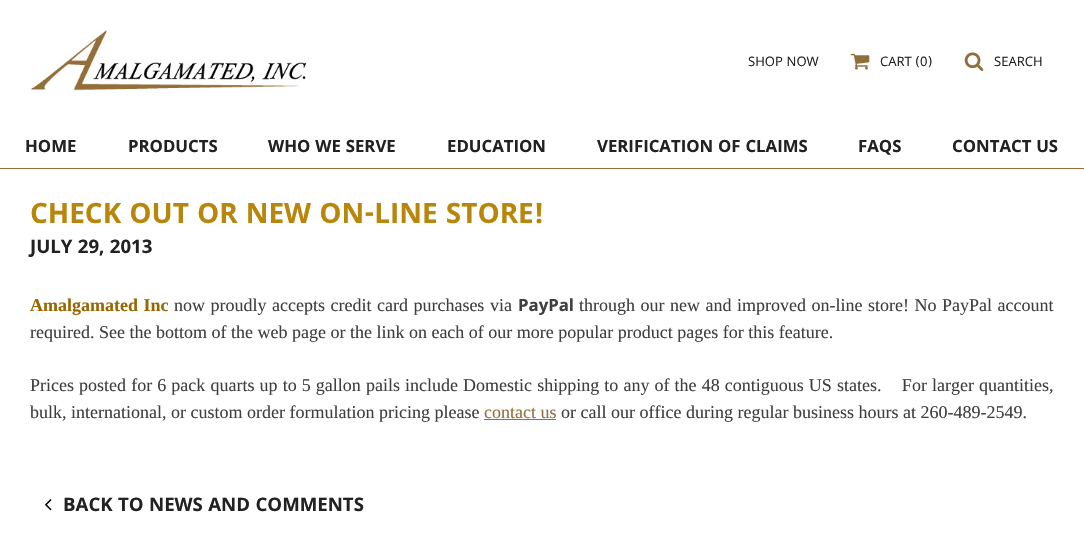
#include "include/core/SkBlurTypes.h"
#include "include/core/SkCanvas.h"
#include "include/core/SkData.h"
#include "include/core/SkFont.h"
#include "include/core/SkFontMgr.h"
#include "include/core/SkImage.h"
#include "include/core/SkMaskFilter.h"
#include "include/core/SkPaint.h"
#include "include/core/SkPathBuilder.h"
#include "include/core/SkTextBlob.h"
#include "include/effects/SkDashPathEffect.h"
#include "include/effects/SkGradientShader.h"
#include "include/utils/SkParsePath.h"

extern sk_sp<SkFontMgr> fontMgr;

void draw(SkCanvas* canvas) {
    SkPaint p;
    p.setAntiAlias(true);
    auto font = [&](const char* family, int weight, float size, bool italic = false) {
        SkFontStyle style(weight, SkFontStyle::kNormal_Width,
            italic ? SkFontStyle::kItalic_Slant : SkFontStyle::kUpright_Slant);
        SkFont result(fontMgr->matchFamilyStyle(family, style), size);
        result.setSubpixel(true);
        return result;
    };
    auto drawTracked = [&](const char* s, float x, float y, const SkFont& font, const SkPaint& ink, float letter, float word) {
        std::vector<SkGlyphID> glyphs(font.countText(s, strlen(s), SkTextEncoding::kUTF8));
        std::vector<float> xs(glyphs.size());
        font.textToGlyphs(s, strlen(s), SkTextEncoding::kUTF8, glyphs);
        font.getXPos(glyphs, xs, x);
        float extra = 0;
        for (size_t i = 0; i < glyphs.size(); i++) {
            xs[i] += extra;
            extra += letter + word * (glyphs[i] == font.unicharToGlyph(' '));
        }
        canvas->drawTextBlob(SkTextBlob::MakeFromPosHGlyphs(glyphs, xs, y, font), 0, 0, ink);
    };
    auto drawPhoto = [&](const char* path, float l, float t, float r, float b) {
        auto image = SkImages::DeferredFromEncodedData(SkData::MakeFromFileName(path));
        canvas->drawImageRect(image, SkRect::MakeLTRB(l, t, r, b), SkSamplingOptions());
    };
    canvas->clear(0xFFFFFFFF);
    p.setColor(0xFF916F3B);
    canvas->drawRect(SkRect::MakeLTRB(0, 168, 1084, 169), p);
    drawPhoto("media/1.png", 30, 30, 307, 91);
    auto font1 = font("Khula", 400, 14);
    p.setColor(0xFF222222);
    canvas->drawString("SHOP NOW", 748, 66, font1, p);
    drawPhoto("media/2.png", 850, 53, 870, 70);
    canvas->drawString("CART (0)", 880, 66, font1, p);
    drawPhoto("media/3.png", 964, 52, 984, 71);
    canvas->drawString("SEARCH", 994, 66, font1, p);
    auto font2 = font("Khula", 700, 18);
    {
        const struct { const char* s; float x, y; } items[] = {
            {"HOME", 25, 152},
            {"PRODUCTS", 128, 152},
            {"WHO WE SERVE", 268, 152},
            {"EDUCATION", 447, 152},
            {"VERIFICATION OF CLAIMS", 597, 152},
            {"FAQS", 858, 152},
            {"CONTACT US", 952, 152},
        };
        for (auto [s, x, y] : items) {
            canvas->drawString(s, x, y, font2, p);
        }
    }
    auto font3 = font("Khula", 700, 30);
    p.setColor(0xFFB8860B);
    canvas->drawString("CHECK OUT OR NEW ON-LINE STORE!", 30, 223, font3, p);
    auto font4 = font("Khula", 700, 20);
    p.setColor(0xFF222222);
    canvas->drawString("JULY 29, 2013", 30, 253, font4, p);
    auto font5 = font("Liberation Serif", 700, 18);
    p.setColor(0xFF996600);
    drawTracked("Amalgamated Inc", 30, 311, font5, p, 0, 1);
    auto font6 = font("Liberation Serif", 400, 18);
    p.setColor(0xFF3F3F3F);
    drawTracked("now proudly accepts credit card purchases via", 174, 311, font6, p, 0, 1);
    canvas->drawString("PayPal", 518, 311, font2, p);
    drawTracked("through our new and improved on-line store! No PayPal account", 579, 311, font6, p, 0, 1);
    canvas->drawString("required. See the bottom of the web page or the link on each of our more popular product pages for this feature.", 30, 338, font6, p);
    drawTracked("Prices posted for 6 pack quarts up to 5 gallon pails include Domestic shipping to any of the 48 contiguous US states.    For larger quantities,", 30, 391, font6, p, 0, 0.6f);
    canvas->drawString("bulk, international, or custom order formulation pricing please", 30, 418, font6, p);
    p.setColor(0xFF916F3B);
    canvas->drawString("contact us", 484, 418, font6, p);
    canvas->drawRect(SkRect::MakeLTRB(484, 419, 556, 420), p);
    p.setColor(0xFF3F3F3F);
    canvas->drawString("or call our office during regular business hours at 260-489-2549.", 561, 418, font6, p);
    drawPhoto("media/4.png", 45, 499, 52, 511);
    p.setColor(0xFF222222);
    canvas->drawString("BACK TO NEWS AND COMMENTS", 63, 511, font4, p);
}
